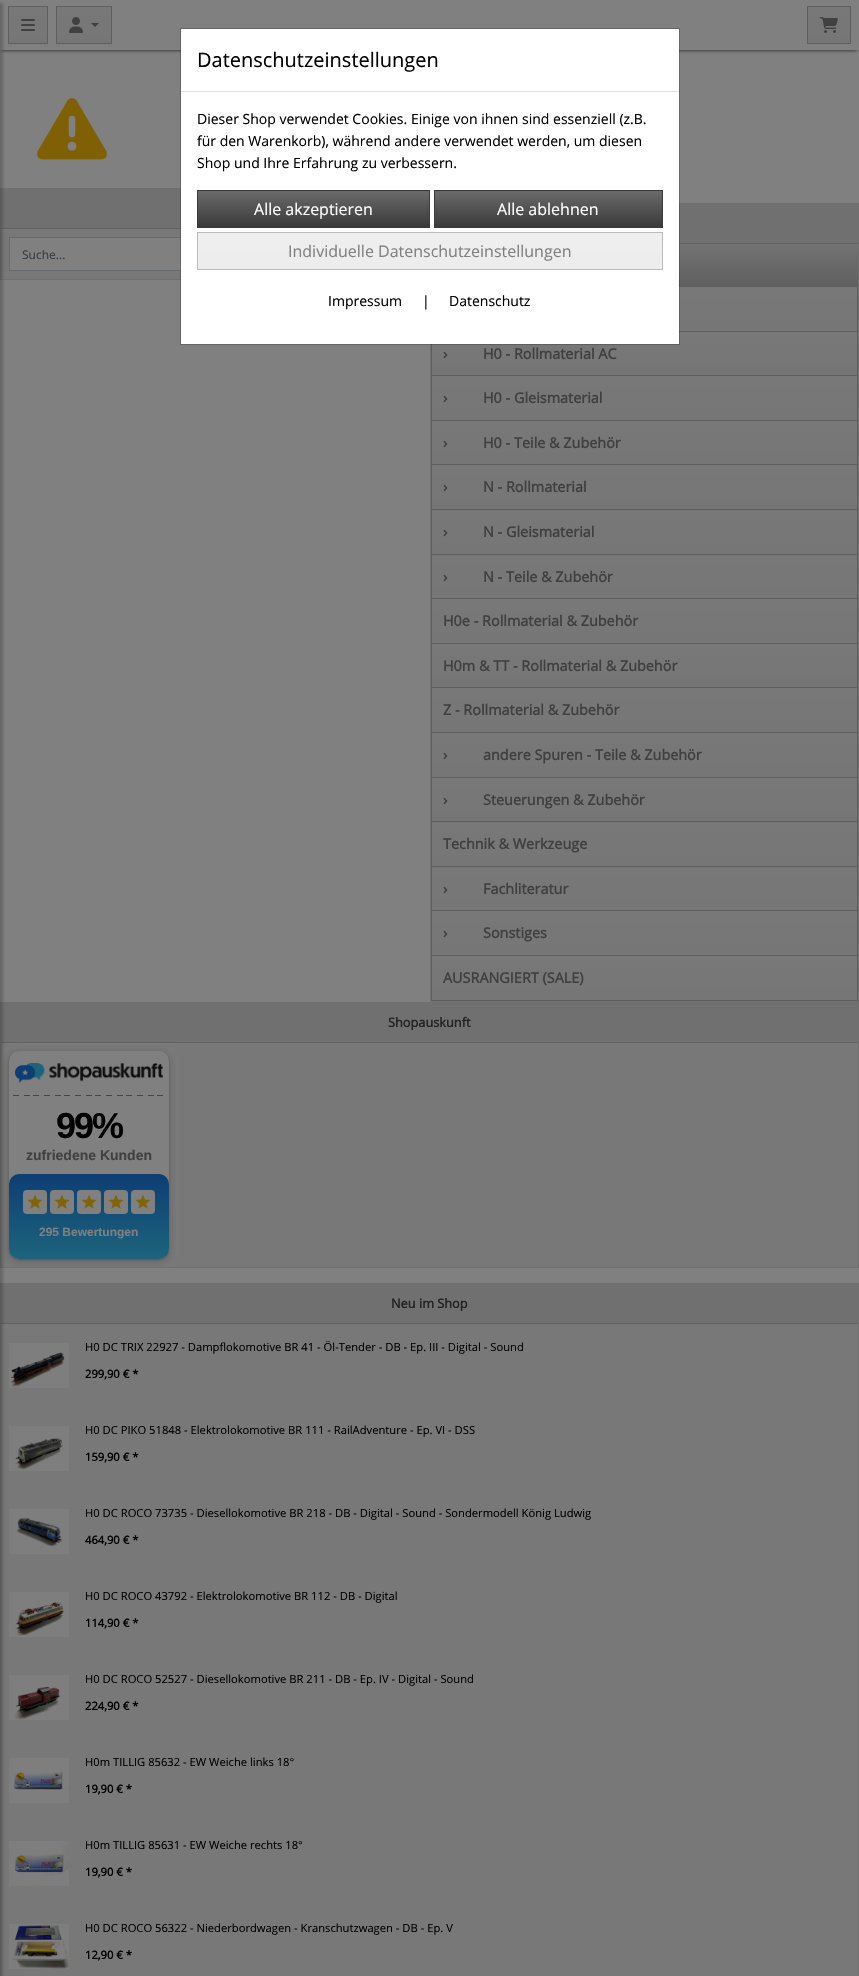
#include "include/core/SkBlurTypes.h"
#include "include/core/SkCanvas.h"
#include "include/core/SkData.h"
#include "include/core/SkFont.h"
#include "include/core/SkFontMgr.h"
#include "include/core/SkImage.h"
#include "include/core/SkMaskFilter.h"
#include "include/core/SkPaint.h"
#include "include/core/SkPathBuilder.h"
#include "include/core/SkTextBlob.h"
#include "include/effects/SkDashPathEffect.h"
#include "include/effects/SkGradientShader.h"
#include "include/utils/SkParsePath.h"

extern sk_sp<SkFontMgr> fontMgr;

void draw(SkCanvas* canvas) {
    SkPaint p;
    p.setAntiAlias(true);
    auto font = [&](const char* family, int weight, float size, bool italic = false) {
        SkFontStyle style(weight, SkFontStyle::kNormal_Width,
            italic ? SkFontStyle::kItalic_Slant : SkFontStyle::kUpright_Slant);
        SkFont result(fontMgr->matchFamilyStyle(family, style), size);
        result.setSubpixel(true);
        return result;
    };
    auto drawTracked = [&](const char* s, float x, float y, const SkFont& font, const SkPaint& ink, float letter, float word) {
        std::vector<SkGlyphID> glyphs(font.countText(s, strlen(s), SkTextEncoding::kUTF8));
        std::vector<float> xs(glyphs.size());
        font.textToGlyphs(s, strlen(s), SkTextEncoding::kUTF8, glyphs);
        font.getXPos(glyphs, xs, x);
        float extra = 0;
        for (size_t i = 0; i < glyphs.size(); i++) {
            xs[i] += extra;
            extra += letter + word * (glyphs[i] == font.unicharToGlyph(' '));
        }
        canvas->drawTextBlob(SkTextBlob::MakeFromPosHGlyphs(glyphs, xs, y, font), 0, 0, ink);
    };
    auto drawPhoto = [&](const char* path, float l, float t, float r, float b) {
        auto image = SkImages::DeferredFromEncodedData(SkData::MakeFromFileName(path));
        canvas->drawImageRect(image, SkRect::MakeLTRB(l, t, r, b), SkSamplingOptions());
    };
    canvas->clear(0xFF808080);
    p.setColor(0xFF3C3C3C);
    p.setMaskFilter(SkMaskFilter::MakeBlur(kNormal_SkBlurStyle, 1.5f));
    canvas->drawRect(SkRect::MakeLTRB(2, 5, 857, 51), p);
    p.setMaskFilter(nullptr);
    p.setColor(0xFF808080);
    canvas->drawRect(SkRect::MakeLTRB(0, 2, 859, 50), p);
    p.setStyle(SkPaint::kStroke_Style);
    p.setStrokeWidth(1);
    p.setColor(0xFF707070);
    canvas->drawRect(SkRect::MakeLTRB(0.5f, 188.5f, 429.5f, 279.5f), p);
    p.setStyle(SkPaint::kFill_Style);
    p.setColor(0xFF797878);
    canvas->drawRect(SkRect::MakeLTRB(1, 229, 181, 279), p);
    p.setColor(0xFF808080);
    canvas->drawRect(SkRect::MakeLTRB(10, 238, 181, 270), p);
    p.setStyle(SkPaint::kStroke_Style);
    p.setColor(0xFF676A6D);
    canvas->drawRect(SkRect::MakeLTRB(9.5f, 237.5f, 420.5f, 270.5f), p);
    p.setColor(0xFF707070);
    canvas->drawRect(SkRect::MakeLTRB(430.5f, 203.5f, 858.5f, 1001.5f), p);
    p.setStyle(SkPaint::kFill_Style);
    {
        const SkColor colors[] = {0xFF787878, 0xFF767676};
        const float stops[] = {0, 1};
        const SkPoint ends[] = {{645, 287}, {645, 331}};
        p.setShader(SkGradientShader::MakeLinear(ends, colors, stops, 2, SkTileMode::kClamp));
        p.setAlpha(255);
    }
    canvas->drawRect(SkRect::MakeLTRB(679, 287, 857, 331), p);
    p.setStyle(SkPaint::kStroke_Style);
    p.setShader(nullptr);
    p.setColor(0xFF5E5E5E);
    canvas->drawRect(SkRect::MakeLTRB(431.5f, 286.5f, 857.5f, 331.5f), p);
    p.setStyle(SkPaint::kFill_Style);
    {
        const SkColor colors[] = {0xFF787878, 0xFF767676};
        const float stops[] = {0, 1};
        const SkPoint ends[] = {{645, 332}, {645, 375}};
        p.setShader(SkGradientShader::MakeLinear(ends, colors, stops, 2, SkTileMode::kClamp));
        p.setAlpha(255);
    }
    canvas->drawRect(SkRect::MakeLTRB(432, 332, 857, 375), p);
    p.setStyle(SkPaint::kStroke_Style);
    p.setShader(nullptr);
    p.setColor(0xFF5E5E5E);
    canvas->drawRect(SkRect::MakeLTRB(431.5f, 331.5f, 857.5f, 375.5f), p);
    p.setStyle(SkPaint::kFill_Style);
    {
        const struct { float l, t, r, b; SkColor color; } items[] = {
            {181, 29, 679, 344, 0xFFFFFFFF},
            {1, 189, 181, 228, 0xFF707070},
            {1, 228, 181, 229, 0xFF626262},
            {679, 204, 858, 243, 0xFF707070},
            {679, 243, 858, 244, 0xFF626262},
        };
        for (auto [l, t, r, b, color] : items) {
            p.setColor(color);
            canvas->drawRect(SkRect::MakeLTRB(l, t, r, b), p);
        }
    }
    {
        const SkColor colors[] = {0xFF737373, 0xFF5F5F5F};
        const float stops[] = {0, 1};
        const SkPoint ends[] = {{645, 243}, {645, 287}};
        p.setShader(SkGradientShader::MakeLinear(ends, colors, stops, 2, SkTileMode::kClamp));
        p.setAlpha(255);
    }
    canvas->drawRect(SkRect::MakeLTRB(679, 244, 858, 286), p);
    p.setStyle(SkPaint::kStroke_Style);
    p.setShader(nullptr);
    p.setColor(0x33000000);
    canvas->drawRect(SkRect::MakeLTRB(180.5f, 28.5f, 679.5f, 344.5f), p);
    p.setStyle(SkPaint::kFill_Style);
    p.setColor(0xFFDEE2E6);
    canvas->drawRect(SkRect::MakeLTRB(181, 91, 679, 92), p);
    auto font1 = font("Open Sans", 400, 20);
    p.setColor(0xFF000000);
    canvas->drawString("Datenschutzeinstellungen", 197, 67, font1, p);
    auto font2 = font("Open Sans", 400, 14);
    {
        const struct { const char* s; float x, y; } items[] = {
            {"Dieser Shop verwendet Cookies. Einige von ihnen sind essenziell (z.B.", 197, 124},
            {"für den Warenkorb), während andere verwendet werden, um diesen", 197, 146},
            {"Shop und Ihre Erfahrung zu verbessern.", 197, 168},
        };
        for (auto [s, x, y] : items) {
            canvas->drawString(s, x, y, font2, p);
        }
    }
    {
        const SkColor colors[] = {0xFF6A6A6A, 0xFF3A3A3A};
        const float stops[] = {0, 1};
        const SkPoint ends[] = {{314, 191}, {314, 227}};
        p.setShader(SkGradientShader::MakeLinear(ends, colors, stops, 2, SkTileMode::kClamp));
        p.setAlpha(255);
    }
    canvas->drawRect(SkRect::MakeLTRB(198, 191, 429, 227), p);
    p.setStyle(SkPaint::kStroke_Style);
    p.setShader(nullptr);
    p.setColor(0xFF3A3A3A);
    canvas->drawRect(SkRect::MakeLTRB(197.5f, 190.5f, 429.5f, 227.5f), p);
    auto font3 = font("Open Sans", 400, 16);
    p.setStyle(SkPaint::kFill_Style);
    p.setColor(0xFFFFFFFF);
    canvas->drawString("Alle akzeptieren", 254, 215, font3, p);
    {
        const SkColor colors[] = {0xFF6A6A6A, 0xFF3A3A3A};
        const float stops[] = {0, 1};
        const SkPoint ends[] = {{549, 191}, {549, 227}};
        p.setShader(SkGradientShader::MakeLinear(ends, colors, stops, 2, SkTileMode::kClamp));
        p.setAlpha(255);
    }
    canvas->drawRect(SkRect::MakeLTRB(435, 191, 662, 227), p);
    p.setStyle(SkPaint::kStroke_Style);
    p.setShader(nullptr);
    p.setColor(0xFF3A3A3A);
    canvas->drawRect(SkRect::MakeLTRB(434.5f, 190.5f, 662.5f, 227.5f), p);
    p.setStyle(SkPaint::kFill_Style);
    p.setColor(0xFFFFFFFF);
    canvas->drawString("Alle ablehnen", 497, 215, font3, p);
    {
        const SkColor colors[] = {0xFFEFEFEF, 0xFFECECEC};
        const float stops[] = {0, 1};
        const SkPoint ends[] = {{430, 233}, {430, 269}};
        p.setShader(SkGradientShader::MakeLinear(ends, colors, stops, 2, SkTileMode::kClamp));
        p.setAlpha(255);
    }
    canvas->drawRect(SkRect::MakeLTRB(198, 233, 662, 269), p);
    p.setStyle(SkPaint::kStroke_Style);
    p.setShader(nullptr);
    p.setColor(0xFFBCBCBC);
    canvas->drawRect(SkRect::MakeLTRB(197.5f, 232.5f, 662.5f, 269.5f), p);
    p.setStyle(SkPaint::kFill_Style);
    p.setColor(0xFF808080);
    canvas->drawString("Individuelle Datenschutzeinstellungen", 288, 257, font3, p);
    p.setColor(0xFF000000);
    {
        const struct { const char* s; float x, y; } items[] = {
            {"Impressum", 328, 306},
            {"|", 422, 306},
            {"Datenschutz", 449, 306},
        };
        for (auto [s, x, y] : items) {
            canvas->drawString(s, x, y, font2, p);
        }
    }
    {
        const SkColor colors[] = {0xFF787878, 0xFF767676};
        const float stops[] = {0, 1};
        const SkPoint ends[] = {{28, 7}, {28, 43}};
        p.setShader(SkGradientShader::MakeLinear(ends, colors, stops, 2, SkTileMode::kClamp));
        p.setAlpha(255);
    }
    canvas->drawRect(SkRect::MakeLTRB(9, 7, 47, 43), p);
    p.setStyle(SkPaint::kStroke_Style);
    p.setShader(nullptr);
    p.setColor(0xFF5E5E5E);
    canvas->drawRect(SkRect::MakeLTRB(8.5f, 6.5f, 47.5f, 43.5f), p);
    drawPhoto("media/1.png", 21, 19, 35, 31);
    p.setStyle(SkPaint::kFill_Style);
    {
        const SkColor colors[] = {0xFF787878, 0xFF767676};
        const float stops[] = {0, 1};
        const SkPoint ends[] = {{84, 7}, {84, 43}};
        p.setShader(SkGradientShader::MakeLinear(ends, colors, stops, 2, SkTileMode::kClamp));
        p.setAlpha(255);
    }
    canvas->drawRect(SkRect::MakeLTRB(57, 7, 111, 43), p);
    p.setStyle(SkPaint::kStroke_Style);
    p.setShader(nullptr);
    p.setColor(0xFF5E5E5E);
    canvas->drawRect(SkRect::MakeLTRB(56.5f, 6.5f, 111.5f, 43.5f), p);
    drawPhoto("media/2.png", 69, 17, 83, 33);
    p.setStyle(SkPaint::kFill_Style);
    p.setColor(0xFF404040);
    canvas->drawPath(SkPathBuilder().moveTo(91, 23).lineTo(99, 23).lineTo(95, 27).close().detach(), p);
    {
        const SkColor colors[] = {0xFF787878, 0xFF767676};
        const float stops[] = {0, 1};
        const SkPoint ends[] = {{829, 7}, {829, 43}};
        p.setShader(SkGradientShader::MakeLinear(ends, colors, stops, 2, SkTileMode::kClamp));
        p.setAlpha(255);
    }
    canvas->drawRect(SkRect::MakeLTRB(808, 7, 850, 43), p);
    p.setStyle(SkPaint::kStroke_Style);
    p.setShader(nullptr);
    p.setColor(0xFF5E5E5E);
    canvas->drawRect(SkRect::MakeLTRB(807.5f, 6.5f, 850.5f, 43.5f), p);
    drawPhoto("media/3.png", 820, 17, 838, 33);
    p.setColor(0xFF707070);
    canvas->drawRect(SkRect::MakeLTRB(0.5f, 1002.5f, 858.5f, 1267.5f), p);
    p.setStyle(SkPaint::kFill_Style);
    {
        const struct { float l, t, r, b; SkColor color; } items[] = {
            {1, 1003, 858, 1042, 0xFF707070},
            {1, 1042, 858, 1043, 0xFF626262},
            {1, 1043, 858, 1267, 0xFF797878},
        };
        for (auto [l, t, r, b, color] : items) {
            p.setColor(color);
            canvas->drawRect(SkRect::MakeLTRB(l, t, r, b), p);
        }
    }
    p.setStyle(SkPaint::kStroke_Style);
    p.setColor(0xFF707070);
    canvas->drawRect(SkRect::MakeLTRB(0.5f, 1283.5f, 858.5f, 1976.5f), p);
    p.setStyle(SkPaint::kFill_Style);
    {
        const struct { float l, t, r, b; SkColor color; } items[] = {
            {1, 1284, 858, 1323, 0xFF707070},
            {1, 1323, 858, 1324, 0xFF626262},
            {1, 1324, 858, 1976, 0xFF797878},
        };
        for (auto [l, t, r, b, color] : items) {
            p.setColor(color);
            canvas->drawRect(SkRect::MakeLTRB(l, t, r, b), p);
        }
    }
    p.setColor(0x33000000);
    p.setMaskFilter(SkMaskFilter::MakeBlur(kNormal_SkBlurStyle, 1.5f));
    canvas->drawRect(SkRect::MakeLTRB(-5, 3, 3, 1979), p);
    p.setMaskFilter(nullptr);
    drawPhoto("media/4.png", 37, 98, 107, 160);
    auto font4 = font("Open Sans", 400, 12);
    p.setColor(0xFF363B3F);
    canvas->drawString("Suche...", 22, 259, font4, p);
    auto font5 = font("Open Sans", 700, 14.4f);
    p.setColor(0xFF404040);
    canvas->drawString("›", 443, 359, font5, p);
    canvas->drawString("H0 - Rollmaterial AC", 483, 359, font5, p);
    {
        const SkColor colors[] = {0xFF787878, 0xFF767676};
        const float stops[] = {0, 1};
        const SkPoint ends[] = {{645, 376}, {645, 420}};
        p.setShader(SkGradientShader::MakeLinear(ends, colors, stops, 2, SkTileMode::kClamp));
        p.setAlpha(255);
    }
    canvas->drawRect(SkRect::MakeLTRB(432, 376, 857, 420), p);
    p.setStyle(SkPaint::kStroke_Style);
    p.setShader(nullptr);
    p.setColor(0xFF5E5E5E);
    canvas->drawRect(SkRect::MakeLTRB(431.5f, 375.5f, 857.5f, 420.5f), p);
    p.setStyle(SkPaint::kFill_Style);
    p.setColor(0xFF404040);
    canvas->drawString("›", 443, 403, font5, p);
    canvas->drawString("H0 - Gleismaterial", 483, 403, font5, p);
    {
        const SkColor colors[] = {0xFF787878, 0xFF767676};
        const float stops[] = {0, 1};
        const SkPoint ends[] = {{645, 421}, {645, 464}};
        p.setShader(SkGradientShader::MakeLinear(ends, colors, stops, 2, SkTileMode::kClamp));
        p.setAlpha(255);
    }
    canvas->drawRect(SkRect::MakeLTRB(432, 421, 857, 464), p);
    p.setStyle(SkPaint::kStroke_Style);
    p.setShader(nullptr);
    p.setColor(0xFF5E5E5E);
    canvas->drawRect(SkRect::MakeLTRB(431.5f, 420.5f, 857.5f, 464.5f), p);
    p.setStyle(SkPaint::kFill_Style);
    p.setColor(0xFF404040);
    canvas->drawString("›", 443, 448, font5, p);
    canvas->drawString("H0 - Teile & Zubehör", 483, 448, font5, p);
    {
        const SkColor colors[] = {0xFF787878, 0xFF767676};
        const float stops[] = {0, 1};
        const SkPoint ends[] = {{645, 465}, {645, 509}};
        p.setShader(SkGradientShader::MakeLinear(ends, colors, stops, 2, SkTileMode::kClamp));
        p.setAlpha(255);
    }
    canvas->drawRect(SkRect::MakeLTRB(432, 465, 857, 509), p);
    p.setStyle(SkPaint::kStroke_Style);
    p.setShader(nullptr);
    p.setColor(0xFF5E5E5E);
    canvas->drawRect(SkRect::MakeLTRB(431.5f, 464.5f, 857.5f, 509.5f), p);
    p.setStyle(SkPaint::kFill_Style);
    p.setColor(0xFF404040);
    canvas->drawString("›", 443, 492, font5, p);
    canvas->drawString("N - Rollmaterial", 483, 492, font5, p);
    {
        const SkColor colors[] = {0xFF787878, 0xFF767676};
        const float stops[] = {0, 1};
        const SkPoint ends[] = {{645, 510}, {645, 554}};
        p.setShader(SkGradientShader::MakeLinear(ends, colors, stops, 2, SkTileMode::kClamp));
        p.setAlpha(255);
    }
    canvas->drawRect(SkRect::MakeLTRB(432, 510, 857, 554), p);
    p.setStyle(SkPaint::kStroke_Style);
    p.setShader(nullptr);
    p.setColor(0xFF5E5E5E);
    canvas->drawRect(SkRect::MakeLTRB(431.5f, 509.5f, 857.5f, 554.5f), p);
    p.setStyle(SkPaint::kFill_Style);
    p.setColor(0xFF404040);
    canvas->drawString("›", 443, 537, font5, p);
    canvas->drawString("N - Gleismaterial", 483, 537, font5, p);
    {
        const SkColor colors[] = {0xFF787878, 0xFF767676};
        const float stops[] = {0, 1};
        const SkPoint ends[] = {{645, 555}, {645, 598}};
        p.setShader(SkGradientShader::MakeLinear(ends, colors, stops, 2, SkTileMode::kClamp));
        p.setAlpha(255);
    }
    canvas->drawRect(SkRect::MakeLTRB(432, 555, 857, 598), p);
    p.setStyle(SkPaint::kStroke_Style);
    p.setShader(nullptr);
    p.setColor(0xFF5E5E5E);
    canvas->drawRect(SkRect::MakeLTRB(431.5f, 554.5f, 857.5f, 598.5f), p);
    p.setStyle(SkPaint::kFill_Style);
    p.setColor(0xFF404040);
    canvas->drawString("›", 443, 582, font5, p);
    canvas->drawString("N - Teile & Zubehör", 483, 582, font5, p);
    {
        const SkColor colors[] = {0xFF787878, 0xFF767676};
        const float stops[] = {0, 1};
        const SkPoint ends[] = {{645, 599}, {645, 643}};
        p.setShader(SkGradientShader::MakeLinear(ends, colors, stops, 2, SkTileMode::kClamp));
        p.setAlpha(255);
    }
    canvas->drawRect(SkRect::MakeLTRB(432, 599, 857, 643), p);
    p.setStyle(SkPaint::kStroke_Style);
    p.setShader(nullptr);
    p.setColor(0xFF5E5E5E);
    canvas->drawRect(SkRect::MakeLTRB(431.5f, 598.5f, 857.5f, 643.5f), p);
    p.setStyle(SkPaint::kFill_Style);
    p.setColor(0xFF404040);
    canvas->drawString("H0e - Rollmaterial & Zubehör", 443, 626, font5, p);
    {
        const SkColor colors[] = {0xFF787878, 0xFF767676};
        const float stops[] = {0, 1};
        const SkPoint ends[] = {{645, 644}, {645, 687}};
        p.setShader(SkGradientShader::MakeLinear(ends, colors, stops, 2, SkTileMode::kClamp));
        p.setAlpha(255);
    }
    canvas->drawRect(SkRect::MakeLTRB(432, 644, 857, 687), p);
    p.setStyle(SkPaint::kStroke_Style);
    p.setShader(nullptr);
    p.setColor(0xFF5E5E5E);
    canvas->drawRect(SkRect::MakeLTRB(431.5f, 643.5f, 857.5f, 687.5f), p);
    p.setStyle(SkPaint::kFill_Style);
    p.setColor(0xFF404040);
    canvas->drawString("H0m & TT - Rollmaterial & Zubehör", 443, 671, font5, p);
    {
        const SkColor colors[] = {0xFF787878, 0xFF767676};
        const float stops[] = {0, 1};
        const SkPoint ends[] = {{645, 688}, {645, 732}};
        p.setShader(SkGradientShader::MakeLinear(ends, colors, stops, 2, SkTileMode::kClamp));
        p.setAlpha(255);
    }
    canvas->drawRect(SkRect::MakeLTRB(432, 688, 857, 732), p);
    p.setStyle(SkPaint::kStroke_Style);
    p.setShader(nullptr);
    p.setColor(0xFF5E5E5E);
    canvas->drawRect(SkRect::MakeLTRB(431.5f, 687.5f, 857.5f, 732.5f), p);
    p.setStyle(SkPaint::kFill_Style);
    p.setColor(0xFF404040);
    canvas->drawString("Z - Rollmaterial & Zubehör", 443, 715, font5, p);
    {
        const SkColor colors[] = {0xFF787878, 0xFF767676};
        const float stops[] = {0, 1};
        const SkPoint ends[] = {{645, 733}, {645, 777}};
        p.setShader(SkGradientShader::MakeLinear(ends, colors, stops, 2, SkTileMode::kClamp));
        p.setAlpha(255);
    }
    canvas->drawRect(SkRect::MakeLTRB(432, 733, 857, 777), p);
    p.setStyle(SkPaint::kStroke_Style);
    p.setShader(nullptr);
    p.setColor(0xFF5E5E5E);
    canvas->drawRect(SkRect::MakeLTRB(431.5f, 732.5f, 857.5f, 777.5f), p);
    p.setStyle(SkPaint::kFill_Style);
    p.setColor(0xFF404040);
    canvas->drawString("›", 443, 760, font5, p);
    canvas->drawString("andere Spuren - Teile & Zubehör", 483, 760, font5, p);
    {
        const SkColor colors[] = {0xFF787878, 0xFF767676};
        const float stops[] = {0, 1};
        const SkPoint ends[] = {{645, 778}, {645, 821}};
        p.setShader(SkGradientShader::MakeLinear(ends, colors, stops, 2, SkTileMode::kClamp));
        p.setAlpha(255);
    }
    canvas->drawRect(SkRect::MakeLTRB(432, 778, 857, 821), p);
    p.setStyle(SkPaint::kStroke_Style);
    p.setShader(nullptr);
    p.setColor(0xFF5E5E5E);
    canvas->drawRect(SkRect::MakeLTRB(431.5f, 777.5f, 857.5f, 821.5f), p);
    p.setStyle(SkPaint::kFill_Style);
    p.setColor(0xFF404040);
    canvas->drawString("›", 443, 805, font5, p);
    canvas->drawString("Steuerungen & Zubehör", 483, 805, font5, p);
    {
        const SkColor colors[] = {0xFF787878, 0xFF767676};
        const float stops[] = {0, 1};
        const SkPoint ends[] = {{645, 822}, {645, 866}};
        p.setShader(SkGradientShader::MakeLinear(ends, colors, stops, 2, SkTileMode::kClamp));
        p.setAlpha(255);
    }
    canvas->drawRect(SkRect::MakeLTRB(432, 822, 857, 866), p);
    p.setStyle(SkPaint::kStroke_Style);
    p.setShader(nullptr);
    p.setColor(0xFF5E5E5E);
    canvas->drawRect(SkRect::MakeLTRB(431.5f, 821.5f, 857.5f, 866.5f), p);
    p.setStyle(SkPaint::kFill_Style);
    p.setColor(0xFF404040);
    canvas->drawString("Technik & Werkzeuge", 443, 849, font5, p);
    {
        const SkColor colors[] = {0xFF787878, 0xFF767676};
        const float stops[] = {0, 1};
        const SkPoint ends[] = {{645, 867}, {645, 910}};
        p.setShader(SkGradientShader::MakeLinear(ends, colors, stops, 2, SkTileMode::kClamp));
        p.setAlpha(255);
    }
    canvas->drawRect(SkRect::MakeLTRB(432, 867, 857, 910), p);
    p.setStyle(SkPaint::kStroke_Style);
    p.setShader(nullptr);
    p.setColor(0xFF5E5E5E);
    canvas->drawRect(SkRect::MakeLTRB(431.5f, 866.5f, 857.5f, 910.5f), p);
    p.setStyle(SkPaint::kFill_Style);
    p.setColor(0xFF404040);
    canvas->drawString("›", 443, 894, font5, p);
    canvas->drawString("Fachliteratur", 483, 894, font5, p);
    {
        const SkColor colors[] = {0xFF787878, 0xFF767676};
        const float stops[] = {0, 1};
        const SkPoint ends[] = {{645, 911}, {645, 955}};
        p.setShader(SkGradientShader::MakeLinear(ends, colors, stops, 2, SkTileMode::kClamp));
        p.setAlpha(255);
    }
    canvas->drawRect(SkRect::MakeLTRB(432, 911, 857, 955), p);
    p.setStyle(SkPaint::kStroke_Style);
    p.setShader(nullptr);
    p.setColor(0xFF5E5E5E);
    canvas->drawRect(SkRect::MakeLTRB(431.5f, 910.5f, 857.5f, 955.5f), p);
    p.setStyle(SkPaint::kFill_Style);
    p.setColor(0xFF404040);
    canvas->drawString("›", 443, 938, font5, p);
    canvas->drawString("Sonstiges", 483, 938, font5, p);
    {
        const SkColor colors[] = {0xFF787878, 0xFF767676};
        const float stops[] = {0, 1};
        const SkPoint ends[] = {{645, 956}, {645, 1000}};
        p.setShader(SkGradientShader::MakeLinear(ends, colors, stops, 2, SkTileMode::kClamp));
        p.setAlpha(255);
    }
    canvas->drawRect(SkRect::MakeLTRB(432, 956, 857, 1000), p);
    p.setStyle(SkPaint::kStroke_Style);
    p.setShader(nullptr);
    p.setColor(0xFF5E5E5E);
    canvas->drawRect(SkRect::MakeLTRB(431.5f, 955.5f, 857.5f, 1000.5f), p);
    p.setStyle(SkPaint::kFill_Style);
    p.setColor(0xFF404040);
    canvas->drawString("AUSRANGIERT (SALE)", 443, 983, font5, p);
    auto font6 = font("Open Sans", 700, 12.75f);
    p.setColor(0xFF232323);
    canvas->drawString("Shopauskunft", 388, 1027, font6, p);
    p.setColor(0x261E2022);
    p.setMaskFilter(SkMaskFilter::MakeBlur(kNormal_SkBlurStyle, 3));
    canvas->drawRoundRect(SkRect::MakeLTRB(7, 1051, 171, 1263), 12, 12, p);
    p.setMaskFilter(nullptr);
    p.setColor(0x4D1E2022);
    p.setMaskFilter(SkMaskFilter::MakeBlur(kNormal_SkBlurStyle, 1));
    canvas->drawRoundRect(SkRect::MakeLTRB(9, 1052, 169, 1260), 10, 10, p);
    p.setMaskFilter(nullptr);
    p.setColor(0xFF808080);
    canvas->drawRoundRect(SkRect::MakeLTRB(9, 1051, 169, 1259), 10, 10, p);
    drawPhoto("media/5.png", 15, 1063, 163, 1083);
    {
        const SkColor colors[] = {0xFF454545, 0xFF454545, 0xFF808080, 0xFF808080, 0xFF454545, 0xFF454545, 0xFF808080, 0xFF808080, 0xFF454545, 0xFF454545, 0xFF808080, 0xFF808080, 0xFF454545, 0xFF454545, 0xFF808080, 0xFF808080, 0xFF454545, 0xFF454545, 0xFF808080, 0xFF808080, 0xFF454545, 0xFF454545, 0xFF808080, 0xFF808080, 0xFF454545, 0xFF454545, 0xFF808080, 0xFF808080, 0xFF454545, 0xFF454545, 0xFF808080, 0xFF808080, 0xFF454545, 0xFF454545, 0xFF808080, 0xFF808080, 0xFF454545, 0xFF454545, 0xFF808080, 0xFF808080, 0xFF454545, 0xFF454545, 0xFF808080, 0xFF808080, 0xFF454545, 0xFF454545, 0xFF808080, 0xFF808080, 0xFF454545, 0xFF454545, 0xFF808080, 0xFF808080, 0xFF454545, 0xFF454545, 0xFF808080, 0xFF808080, 0xFF454545, 0xFF454545, 0xFF808080, 0xFF808080};
        const float stops[] = {0, 0.04f, 0.04f, 0.07f, 0.07f, 0.11f, 0.11f, 0.13f, 0.13f, 0.17f, 0.17f, 0.2f, 0.2f, 0.24f, 0.24f, 0.27f, 0.27f, 0.31f, 0.31f, 0.33f, 0.33f, 0.37f, 0.37f, 0.4f, 0.4f, 0.44f, 0.44f, 0.47f, 0.47f, 0.51f, 0.51f, 0.53f, 0.53f, 0.57f, 0.57f, 0.6f, 0.6f, 0.64f, 0.64f, 0.67f, 0.67f, 0.71f, 0.71f, 0.73f, 0.73f, 0.77f, 0.77f, 0.8f, 0.8f, 0.84f, 0.84f, 0.87f, 0.87f, 0.91f, 0.91f, 0.93f, 0.93f, 0.97f, 0.97f, 1};
        const SkPoint ends[] = {{13, 1096}, {168, 1096}};
        p.setShader(SkGradientShader::MakeLinear(ends, colors, stops, 60, SkTileMode::kClamp));
        p.setAlpha(255);
    }
    canvas->drawRect(SkRect::MakeLTRB(13, 1095, 165, 1096), p);
    auto font7 = font("Liberation Sans", 700, 36);
    p.setShader(nullptr);
    p.setColor(0xFF000000);
    drawTracked("99%", 56, 1138, font7, p, -2, 0);
    auto font8 = font("Liberation Sans", 700, 14);
    p.setColor(0xFF404040);
    canvas->drawString("zufriedene Kunden", 26, 1160, font8, p);
    {
        const SkColor colors[] = {0xFF0D3E73, 0xFF1D647C};
        const float stops[] = {0, 1};
        const SkPoint ends[] = {{89, 1174}, {89, 1259}};
        p.setShader(SkGradientShader::MakeLinear(ends, colors, stops, 2, SkTileMode::kClamp));
        p.setAlpha(255);
    }
    canvas->drawRoundRect(SkRect::MakeLTRB(9, 1174, 169, 1259), 10, 10, p);
    p.setShader(nullptr);
    p.setColor(0xFF808080);
    canvas->drawRoundRect(SkRect::MakeLTRB(23, 1190, 47, 1214), 4, 4, p);
    drawPhoto("media/6.png", 27, 1194, 43, 1209);
    canvas->drawRoundRect(SkRect::MakeLTRB(50, 1190, 74, 1214), 4, 4, p);
    drawPhoto("media/6.png", 54, 1194, 70, 1209);
    canvas->drawRoundRect(SkRect::MakeLTRB(77, 1190, 101, 1214), 4, 4, p);
    drawPhoto("media/6.png", 81, 1194, 97, 1209);
    canvas->drawRoundRect(SkRect::MakeLTRB(104, 1190, 128, 1214), 4, 4, p);
    drawPhoto("media/6.png", 108, 1194, 124, 1209);
    canvas->drawRoundRect(SkRect::MakeLTRB(131, 1190, 155, 1214), 4, 4, p);
    drawPhoto("media/6.png", 135, 1194, 151, 1209);
    auto font9 = font("Liberation Sans", 700, 12);
    canvas->drawString("295 Bewertungen", 39, 1236, font9, p);
    p.setColor(0xFF232323);
    canvas->drawString("Neu im Shop", 391, 1308, font6, p);
    drawPhoto("media/7.png", 9, 1343, 69, 1388);
    auto font10 = font("Open Sans", 400, 11.2f);
    p.setColor(0xFF000000);
    canvas->drawString("H0 DC TRIX 22927 - Dampflokomotive BR 41 - Öl-Tender - DB - Ep. III - Digital - Sound", 85, 1351, font10, p);
    auto font11 = font("Open Sans", 700, 11.2f);
    canvas->drawString("299,90 € *", 85, 1378, font11, p);
    drawPhoto("media/8.png", 9, 1426, 69, 1471);
    canvas->drawString("H0 DC PIKO 51848 - Elektrolokomotive BR 111 - RailAdventure - Ep. VI - DSS", 85, 1434, font10, p);
    canvas->drawString("159,90 € *", 85, 1461, font11, p);
    drawPhoto("media/9.png", 9, 1509, 69, 1554);
    canvas->drawString("H0 DC ROCO 73735 - Diesellokomotive BR 218 - DB - Digital - Sound - Sondermodell König Ludwig", 85, 1517, font10, p);
    canvas->drawString("464,90 € *", 85, 1544, font11, p);
    drawPhoto("media/10.png", 9, 1592, 69, 1637);
    canvas->drawString("H0 DC ROCO 43792 - Elektrolokomotive BR 112 - DB - Digital", 85, 1600, font10, p);
    canvas->drawString("114,90 € *", 85, 1627, font11, p);
    drawPhoto("media/11.png", 9, 1675, 69, 1720);
    canvas->drawString("H0 DC ROCO 52527 - Diesellokomotive BR 211 - DB - Ep. IV - Digital - Sound", 85, 1683, font10, p);
    canvas->drawString("224,90 € *", 85, 1710, font11, p);
    drawPhoto("media/12.png", 9, 1758, 69, 1803);
    canvas->drawString("H0m TILLIG 85632 - EW Weiche links 18°", 85, 1766, font10, p);
    canvas->drawString("19,90 € *", 85, 1793, font11, p);
    drawPhoto("media/13.png", 9, 1841, 69, 1886);
    canvas->drawString("H0m TILLIG 85631 - EW Weiche rechts 18°", 85, 1849, font10, p);
    canvas->drawString("19,90 € *", 85, 1876, font11, p);
    drawPhoto("media/14.png", 9, 1924, 69, 1969);
    canvas->drawString("H0 DC ROCO 56322 - Niederbordwagen - Kranschutzwagen - DB - Ep. V", 85, 1932, font10, p);
    canvas->drawString("12,90 € *", 85, 1959, font11, p);
}
